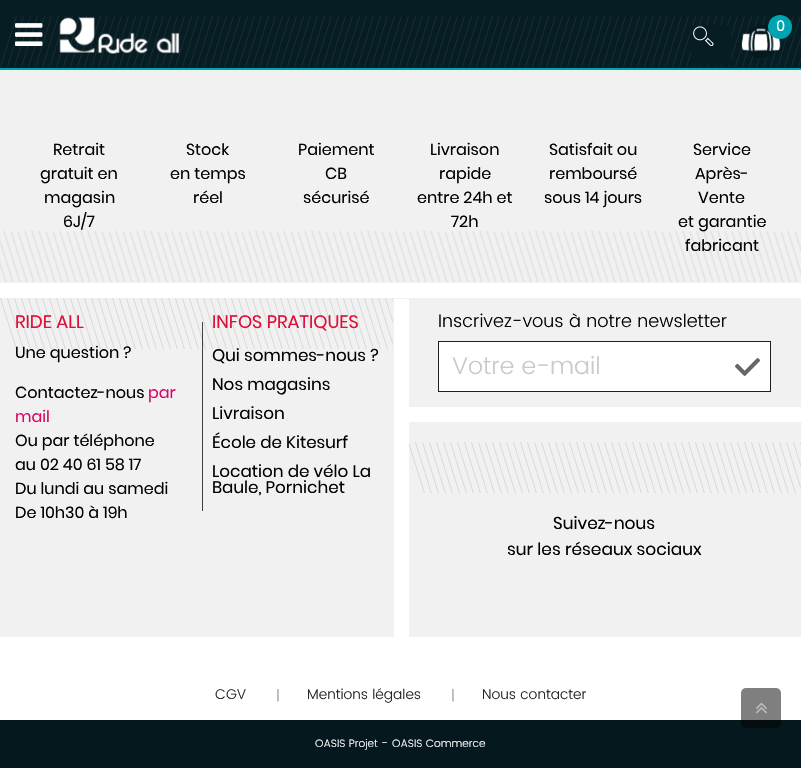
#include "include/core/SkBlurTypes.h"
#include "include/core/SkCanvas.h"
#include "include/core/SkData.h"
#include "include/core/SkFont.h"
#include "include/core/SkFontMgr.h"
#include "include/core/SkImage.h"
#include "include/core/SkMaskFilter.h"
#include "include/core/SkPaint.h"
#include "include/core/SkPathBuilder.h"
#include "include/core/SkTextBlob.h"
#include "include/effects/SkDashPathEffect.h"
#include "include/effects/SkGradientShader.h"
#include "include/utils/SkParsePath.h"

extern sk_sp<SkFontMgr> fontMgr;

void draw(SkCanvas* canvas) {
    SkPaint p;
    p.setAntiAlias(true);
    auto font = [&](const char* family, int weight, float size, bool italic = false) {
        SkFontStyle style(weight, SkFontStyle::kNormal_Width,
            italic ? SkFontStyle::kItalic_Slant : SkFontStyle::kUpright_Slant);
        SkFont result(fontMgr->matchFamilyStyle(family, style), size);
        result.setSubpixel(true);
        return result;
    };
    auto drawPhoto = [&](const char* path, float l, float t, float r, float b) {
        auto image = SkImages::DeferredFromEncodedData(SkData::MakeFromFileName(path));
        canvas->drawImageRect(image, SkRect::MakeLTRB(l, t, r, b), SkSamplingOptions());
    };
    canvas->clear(0xFFFFFFFF);
    p.setColor(0xFF061D24);
    canvas->drawRect(SkRect::MakeLTRB(0, 0, 801, 68), p);
    drawPhoto("media/1.png", 0, 16, 801, 67);
    p.setColor(0xFF00A3B2);
    canvas->drawRect(SkRect::MakeLTRB(0, 68, 801, 70), p);
    drawPhoto("media/2.png", 15, 23, 43, 46);
    drawPhoto("media/3.png", 59, 17, 180, 54);
    p.setColor(0xFF061D24);
    canvas->drawRect(SkRect::MakeLTRB(691, 25, 731, 65), p);
    drawPhoto("media/4.png", 693, 26, 714, 46);
    drawPhoto("media/5.png", 741, 25, 781, 58);
    p.setColor(0xFF00A3B2);
    canvas->drawCircle(780, 27, 12, p);
    auto font1 = font("Poppins", 700, 14);
    p.setColor(0xFFFFFFFF);
    canvas->drawString("0", 776, 31, font1, p);
    p.setColor(0xFFF1F1F1);
    canvas->drawRect(SkRect::MakeLTRB(0, 70, 801, 283), p);
    drawPhoto("media/6.png", 0, 231, 801, 282);
    auto font2 = font("Poppins", 400, 16);
    p.setColor(0xFF000000);
    {
        const struct { const char* s; float x, y; } items[] = {
            {"Retrait", 53, 155},
            {"gratuit en", 40, 179},
            {"magasin", 44, 203},
            {"6J/7", 63, 227},
            {"Stock", 186, 155},
            {"en temps", 170, 179},
            {"réel", 193, 203},
            {"Paiement", 298, 155},
            {"CB", 325, 179},
            {"sécurisé", 303, 203},
            {"Livraison", 430, 155},
            {"rapide", 439, 179},
            {"entre 24h et", 417, 203},
            {"72h", 451, 227},
            {"Satisfait ou", 549, 155},
            {"remboursé", 549, 179},
            {"sous 14 jours", 544, 203},
            {"Service", 693, 155},
            {"Après-", 695, 179},
            {"Vente", 698, 203},
            {"et garantie", 678, 227},
            {"fabricant", 685, 251},
        };
        for (auto [s, x, y] : items) {
            canvas->drawString(s, x, y, font2, p);
        }
    }
    p.setColor(0xFFF1F1F1);
    canvas->drawRect(SkRect::MakeLTRB(0, 298, 801, 637), p);
    drawPhoto("media/7.png", 0, 298, 393, 349);
    auto font3 = font("Poppins", 400, 18);
    p.setColor(0xFFDE0F39);
    canvas->drawString("RIDE ALL", 15, 328, font3, p);
    p.setColor(0xFF000000);
    canvas->drawString("Une question ?", 15, 358, font2, p);
    canvas->drawString("Contactez-nous", 15, 398, font2, p);
    p.setColor(0xFFDC0569);
    canvas->drawString("par", 148, 398, font2, p);
    canvas->drawString("mail", 15, 422, font2, p);
    p.setColor(0xFF000000);
    {
        const struct { const char* s; float x, y; } items[] = {
            {"Ou par téléphone", 15, 446},
            {"au 02 40 61 58 17", 15, 470},
            {"Du lundi au samedi", 15, 494},
            {"De 10h30 à 19h", 15, 518},
        };
        for (auto [s, x, y] : items) {
            canvas->drawString(s, x, y, font2, p);
        }
    }
    p.setColor(0xFF404040);
    canvas->drawRect(SkRect::MakeLTRB(202, 322, 203, 511), p);
    p.setColor(0xFFDE0F39);
    canvas->drawString("INFOS PRATIQUES", 212, 328, font3, p);
    auto font4 = font("Poppins", 400, 16.75f);
    p.setColor(0xFF000000);
    {
        const struct { const char* s; float x, y; } items[] = {
            {"Qui sommes-nous ?", 212, 361},
            {"Nos magasins", 212, 390},
            {"Livraison", 212, 419},
            {"École de Kitesurf", 212, 448},
            {"Location de vélo La", 212, 477},
            {"Baule, Pornichet", 212, 493},
        };
        for (auto [s, x, y] : items) {
            canvas->drawString(s, x, y, font4, p);
        }
    }
    p.setColor(0xFFFFFFFF);
    canvas->drawRect(SkRect::MakeLTRB(394, 299, 409, 637), p);
    auto font5 = font("Poppins", 300, 18);
    p.setColor(0xFF000000);
    canvas->drawString("Inscrivez-vous à notre newsletter", 438, 327, font5, p);
    p.setStyle(SkPaint::kStroke_Style);
    p.setStrokeWidth(1);
    p.setColor(0xFF231F20);
    canvas->drawRect(SkRect::MakeLTRB(438.5f, 341.5f, 770.5f, 391.5f), p);
    p.setStyle(SkPaint::kFill_Style);
    p.setColor(0xFFFFFFFF);
    canvas->drawRect(SkRect::MakeLTRB(439, 342, 770, 391), p);
    auto font6 = font("Poppins", 300, 24);
    p.setColor(0xFFCACACA);
    canvas->drawString("Votre e-mail", 452, 374, font6, p);
    drawPhoto("media/8.png", 735, 358, 760, 376);
    p.setColor(0xFFFFFFFF);
    canvas->drawRect(SkRect::MakeLTRB(409, 407, 801, 422), p);
    drawPhoto("media/9.png", 409, 442, 801, 493);
    auto font7 = font("Poppins", 400, 17);
    p.setColor(0xFF000000);
    canvas->drawString("Suivez-nous", 553, 529, font7, p);
    canvas->drawString("sur les réseaux sociaux", 507, 555, font7, p);
    auto font8 = font("Poppins", 300, 14);
    p.setColor(0xFF222222);
    canvas->drawString("CGV", 215, 699, font8, p);
    p.setColor(0xFF919191);
    canvas->drawString("|", 276, 700, font8, p);
    p.setColor(0xFF222222);
    canvas->drawString("Mentions légales", 307, 699, font8, p);
    p.setColor(0xFF919191);
    canvas->drawString("|", 451, 700, font8, p);
    p.setColor(0xFF222222);
    canvas->drawString("Nous contacter", 482, 699, font8, p);
    p.setColor(0xFF05181D);
    canvas->drawRect(SkRect::MakeLTRB(0, 720, 801, 768), p);
    auto font9 = font("Poppins", 300, 10.75f);
    p.setColor(0xFFFFFFFF);
    canvas->drawString("OASIS Projet", 315, 747, font9, p);
    auto font10 = font("Poppins", 300, 12);
    canvas->drawString("-", 381, 747, font10, p);
    canvas->drawString("OASIS Commerce", 392, 747, font9, p);
    p.setColor(0x80000000);
    canvas->drawRoundRect(SkRect::MakeLTRB(741, 688, 781, 728), 5, 5, p);
    drawPhoto("media/10.png", 756, 702, 767, 714);
}
